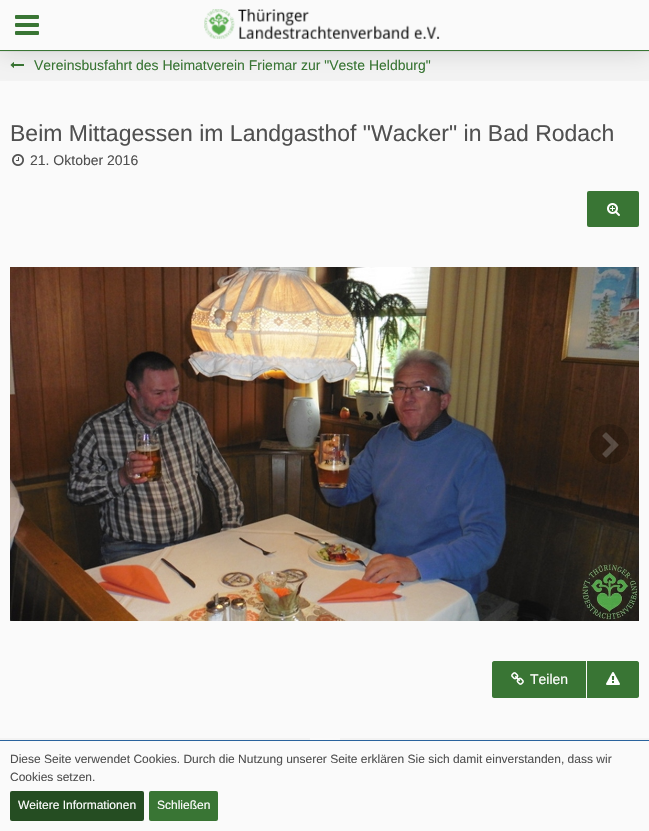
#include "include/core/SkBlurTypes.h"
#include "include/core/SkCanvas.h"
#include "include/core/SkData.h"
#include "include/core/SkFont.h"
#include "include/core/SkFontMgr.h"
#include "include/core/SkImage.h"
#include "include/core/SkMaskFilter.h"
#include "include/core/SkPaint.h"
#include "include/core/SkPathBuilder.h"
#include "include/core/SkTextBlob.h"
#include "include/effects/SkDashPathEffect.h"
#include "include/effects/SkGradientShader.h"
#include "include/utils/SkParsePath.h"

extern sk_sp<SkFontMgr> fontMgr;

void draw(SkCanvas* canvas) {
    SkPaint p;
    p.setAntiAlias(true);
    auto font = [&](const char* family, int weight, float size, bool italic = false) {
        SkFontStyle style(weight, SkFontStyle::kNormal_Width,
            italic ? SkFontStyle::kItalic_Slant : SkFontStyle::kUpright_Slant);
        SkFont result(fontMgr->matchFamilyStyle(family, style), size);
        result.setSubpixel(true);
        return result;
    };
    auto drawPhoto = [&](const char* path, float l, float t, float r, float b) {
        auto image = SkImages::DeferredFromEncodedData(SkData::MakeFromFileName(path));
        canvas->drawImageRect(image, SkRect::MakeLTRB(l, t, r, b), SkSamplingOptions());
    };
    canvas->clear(0xFFF3F3F3);
    p.setColor(0xFFE7E7E7);
    canvas->drawRect(SkRect::MakeLTRB(0, 51, 649, 52), p);
    drawPhoto("media/3.png", 10, 62, 24, 68);
    p.setColor(0xFFFAFAFA);
    canvas->drawRect(SkRect::MakeLTRB(0, 81, 649, 740), p);
    p.setColor(0x26000000);
    p.setMaskFilter(SkMaskFilter::MakeBlur(kNormal_SkBlurStyle, 12.5f));
    canvas->drawRect(SkRect::MakeLTRB(0, 0, 649, 51), p);
    p.setMaskFilter(nullptr);
    p.setColor(0xFFFAFAFA);
    canvas->drawRect(SkRect::MakeLTRB(0, 0, 649, 50), p);
    p.setColor(0xFF397534);
    canvas->drawRect(SkRect::MakeLTRB(0, 50, 649, 51), p);
    drawPhoto("media/1.png", 15, 15, 39, 35);
    drawPhoto("media/2.png", 204, 9, 440, 39);
    auto font1 = font("Liberation Sans", 400, 14);
    canvas->drawString("Vereinsbusfahrt des Heimatverein Friemar zur \"Veste Heldburg\"", 34, 70, font1, p);
    auto font2 = font("Liberation Sans", 400, 23);
    p.setColor(0xFF505050);
    canvas->drawString("Beim Mittagessen im Landgasthof \"Wacker\" in Bad Rodach", 10, 141, font2, p);
    drawPhoto("media/4.png", 12, 154, 24, 166);
    canvas->drawString("21. Oktober 2016", 30, 165, font1, p);
    p.setColor(0xFF397534);
    canvas->drawRoundRect(SkRect::MakeLTRB(587, 191, 639, 227), 2, 2, p);
    drawPhoto("media/5.png", 607, 203, 620, 216);
    drawPhoto("media/6.png", 10, 267, 639, 621);
    p.setColor(0x33000000);
    canvas->drawCircle(609, 444, 20, p);
    drawPhoto("media/7.png", 602, 432, 619, 458);
    p.setColor(0xFF397534);
    canvas->drawPath(SkPathBuilder().moveTo(494, 661).lineTo(586, 661).lineTo(586, 698).lineTo(494, 698).cubicTo(493, 698, 492, 697, 492, 696).lineTo(492, 663).cubicTo(492, 662, 493, 661, 494, 661).close().detach(), p);
    drawPhoto("media/8.png", 511, 672, 524, 685);
    p.setColor(0xFFFFFFFF);
    canvas->drawString("Teilen", 530, 684, font1, p);
    p.setColor(0xFF397534);
    canvas->drawPath(SkPathBuilder().moveTo(587, 661).lineTo(637, 661).cubicTo(638, 661, 639, 662, 639, 663).lineTo(639, 696).cubicTo(639, 697, 638, 698, 637, 698).lineTo(587, 698).close().detach(), p);
    drawPhoto("media/9.png", 606, 672, 620, 685);
    {
        const struct { float l, t, r, b; SkColor color; } items[] = {
            {0, 738, 310, 740, 0xFFF3F3F3},
            {340, 738, 649, 740, 0xFFF3F3F3},
            {0, 741, 649, 831, 0xFFFAFAFA},
            {0, 740, 649, 741, 0xFF2A639D},
        };
        for (auto [l, t, r, b, color] : items) {
            p.setColor(color);
            canvas->drawRect(SkRect::MakeLTRB(l, t, r, b), p);
        }
    }
    auto font3 = font("Liberation Sans", 400, 12);
    p.setColor(0xFF505050);
    canvas->drawString("Diese Seite verwendet Cookies. Durch die Nutzung unserer Seite erklären Sie sich damit einverstanden, dass wir", 10, 763, font3, p);
    canvas->drawString("Cookies setzen.", 10, 781, font3, p);
    p.setColor(0xFF254D22);
    canvas->drawRoundRect(SkRect::MakeLTRB(10, 791, 144, 821), 2, 2, p);
    p.setColor(0xFFFFFFFF);
    canvas->drawString("Weitere Informationen", 18, 809, font3, p);
    p.setColor(0xFF397534);
    canvas->drawRoundRect(SkRect::MakeLTRB(149, 791, 218, 821), 2, 2, p);
    p.setColor(0xFFFFFFFF);
    canvas->drawString("Schließen", 157, 809, font3, p);
}
